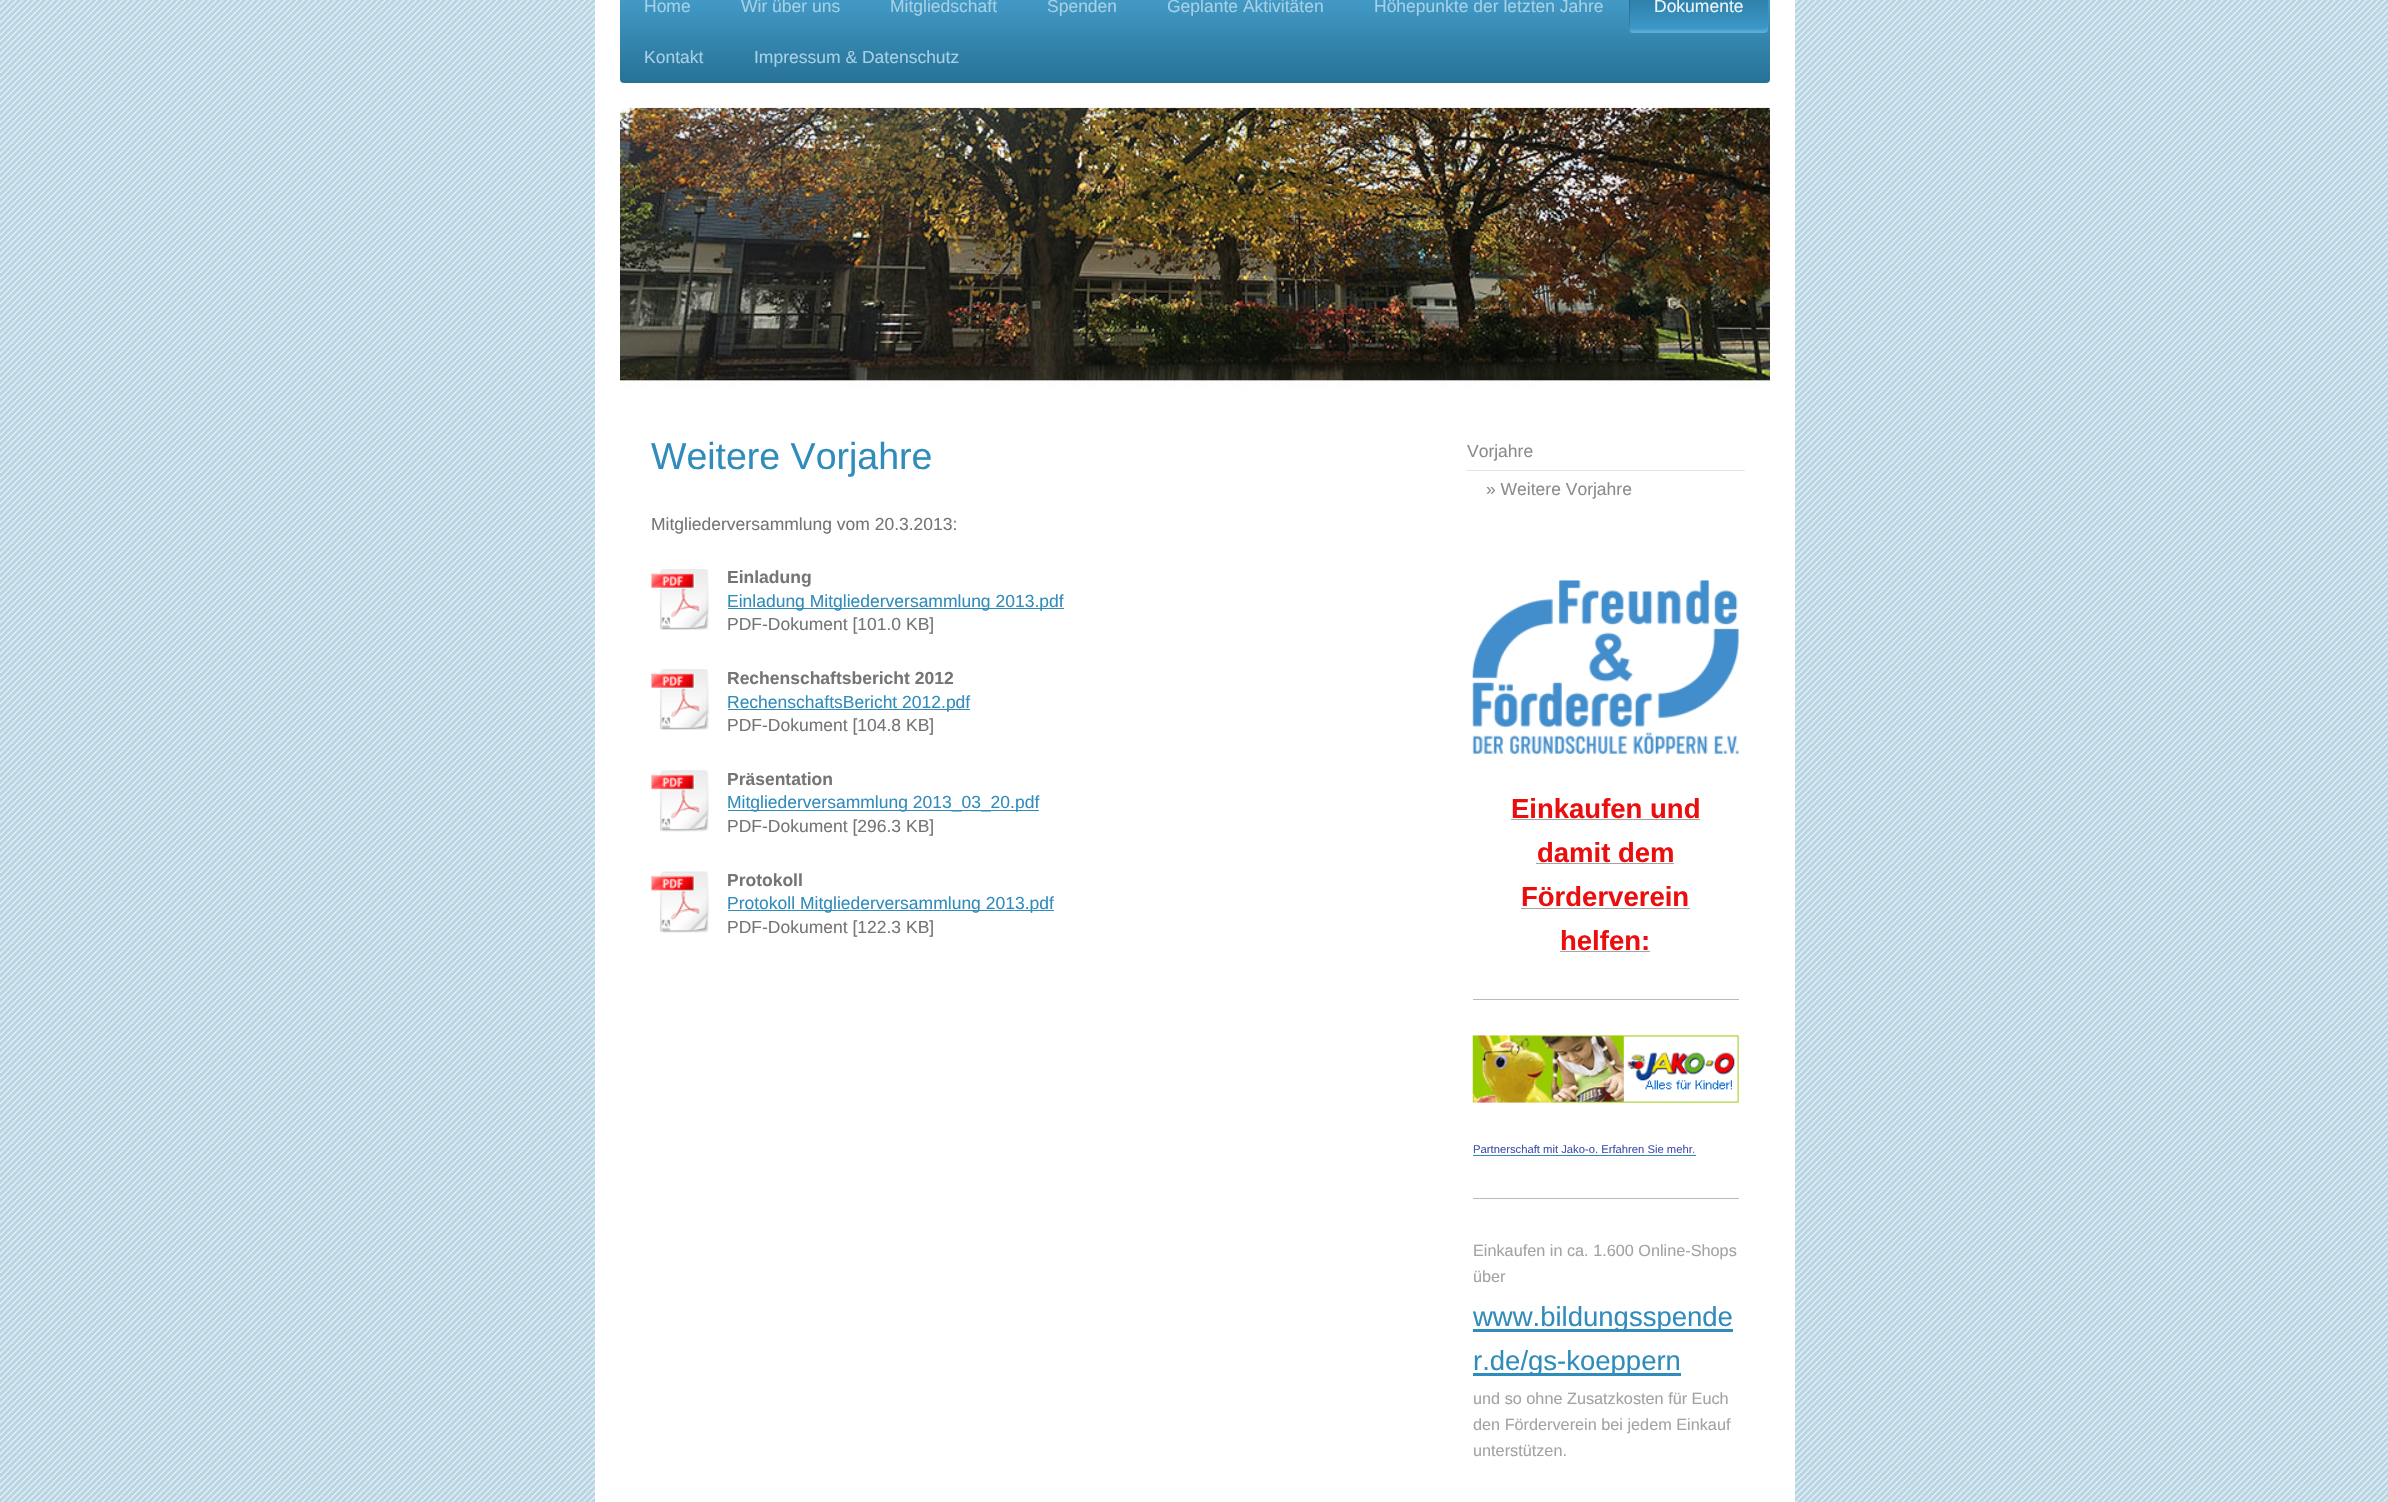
#include "include/core/SkBlurTypes.h"
#include "include/core/SkCanvas.h"
#include "include/core/SkData.h"
#include "include/core/SkFont.h"
#include "include/core/SkFontMgr.h"
#include "include/core/SkImage.h"
#include "include/core/SkMaskFilter.h"
#include "include/core/SkPaint.h"
#include "include/core/SkPathBuilder.h"
#include "include/core/SkTextBlob.h"
#include "include/effects/SkDashPathEffect.h"
#include "include/effects/SkGradientShader.h"
#include "include/utils/SkParsePath.h"

extern sk_sp<SkFontMgr> fontMgr;

void draw(SkCanvas* canvas) {
    SkPaint p;
    p.setAntiAlias(true);
    auto font = [&](const char* family, int weight, float size, bool italic = false) {
        SkFontStyle style(weight, SkFontStyle::kNormal_Width,
            italic ? SkFontStyle::kItalic_Slant : SkFontStyle::kUpright_Slant);
        SkFont result(fontMgr->matchFamilyStyle(family, style), size);
        result.setSubpixel(true);
        return result;
    };
    auto drawPhoto = [&](const char* path, float l, float t, float r, float b) {
        auto image = SkImages::DeferredFromEncodedData(SkData::MakeFromFileName(path));
        canvas->drawImageRect(image, SkRect::MakeLTRB(l, t, r, b), SkSamplingOptions());
    };
    canvas->clear(0xFFB8D5E3);
    drawPhoto("media/1.png", 0, 0, 2388, 1502);
    p.setColor(0xFFFFFFFF);
    canvas->drawRect(SkRect::MakeLTRB(595, 0, 1795, 1502), p);
    {
        const SkColor colors[] = {0xFF48A3D0, 0xFF277196};
        const float stops[] = {0, 1};
        const SkPoint ends[] = {{620, -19}, {620, 83}};
        p.setShader(SkGradientShader::MakeLinear(ends, colors, stops, 2, SkTileMode::kClamp));
        p.setAlpha(255);
    }
    canvas->drawRoundRect(SkRect::MakeLTRB(620, -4, 1770, 83), 4, 4, p);
    auto font1 = font("Liberation Sans", 400, 17.5f);
    p.setShader(nullptr);
    p.setColor(0xFFA5D0E6);
    {
        const struct { const char* s; float x, y; } items[] = {
            {"Home", 644, 12},
            {"Wir über uns", 741, 12},
            {"Mitgliedschaft", 890, 12},
            {"Spenden", 1047, 12},
            {"Geplante Aktivitäten", 1167, 12},
            {"Höhepunkte der letzten Jahre", 1374, 12},
        };
        for (auto [s, x, y] : items) {
            canvas->drawString(s, x, y, font1, p);
        }
    }
    {
        const SkColor colors[] = {0xFF3C9CCD, 0xFF277196};
        const float stops[] = {0, 1};
        const SkPoint ends[] = {{1629, 33}, {1629, -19}};
        p.setShader(SkGradientShader::MakeLinear(ends, colors, stops, 2, SkTileMode::kClamp));
        p.setAlpha(255);
    }
    canvas->drawRoundRect(SkRect::MakeLTRB(1629, -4, 1768, 33), 4, 4, p);
    p.setShader(nullptr);
    p.setColor(0x26000000);
    canvas->drawPath(SkPathBuilder().moveTo(1634, -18).lineTo(1765, -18).lineTo(1767, -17).cubicTo(1767, -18, 1765, -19, 1764, -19).lineTo(1633, -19).cubicTo(1631, -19, 1629, -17, 1629, -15).lineTo(1629, 29).cubicTo(1629, 30, 1630, 32, 1631, 32).lineTo(1630, 30).lineTo(1630, -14).cubicTo(1630, -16, 1632, -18, 1634, -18).close().detach(), p);
    p.setColor(0x14FFFFFF);
    canvas->drawPath(SkPathBuilder().moveTo(1629, 25).lineTo(1629, 29).cubicTo(1629, 31, 1631, 33, 1633, 33).lineTo(1764, 33).cubicTo(1766, 33, 1768, 31, 1768, 29).lineTo(1768, 25).cubicTo(1768, 27, 1766, 29, 1764, 29).lineTo(1632, 29).cubicTo(1630, 29, 1629, 27, 1629, 25).close().detach(), p);
    p.setColor(0x1AFFFFFF);
    canvas->drawPath(SkPathBuilder().moveTo(1629, 28).lineTo(1629, 29).cubicTo(1629, 31, 1631, 33, 1633, 33).lineTo(1764, 33).cubicTo(1766, 33, 1768, 31, 1768, 29).lineTo(1768, 28).cubicTo(1768, 30, 1766, 31, 1764, 31).lineTo(1632, 31).cubicTo(1630, 31, 1629, 30, 1629, 28).close().detach(), p);
    p.setColor(0xFFEAF4F8);
    canvas->drawString("Dokumente", 1654, 12, font1, p);
    p.setColor(0xFFA5D0E6);
    canvas->drawString("Kontakt", 644, 63, font1, p);
    canvas->drawString("Impressum & Datenschutz", 754, 63, font1, p);
    drawPhoto("media/2.png", 620, 107, 1770, 388);
    auto font2 = font("Liberation Sans", 400, 37.5f);
    p.setColor(0xFF308CBA);
    canvas->drawString("Weitere Vorjahre", 651, 469, font2, p);
    p.setColor(0xFF757575);
    canvas->drawString("Mitgliederversammlung vom 20.3.2013:", 651, 530, font1, p);
    drawPhoto("media/3.png", 651, 569, 709, 630);
    auto font3 = font("Liberation Sans", 700, 17.5f);
    canvas->drawString("Einladung", 727, 583, font3, p);
    p.setColor(0xFF308CBA);
    canvas->drawRect(SkRect::MakeLTRB(728, 608, 1064, 609), p);
    canvas->drawString("Einladung Mitgliederversammlung 2013.pdf", 727, 607, font1, p);
    p.setColor(0xFF757575);
    canvas->drawString("PDF-Dokument [101.0 KB]", 727, 630, font1, p);
    drawPhoto("media/3.png", 651, 669, 709, 730);
    canvas->drawString("Rechenschaftsbericht 2012", 727, 684, font3, p);
    p.setColor(0xFF308CBA);
    canvas->drawRect(SkRect::MakeLTRB(728, 709, 970, 710), p);
    canvas->drawString("RechenschaftsBericht 2012.pdf", 727, 708, font1, p);
    p.setColor(0xFF757575);
    canvas->drawString("PDF-Dokument [104.8 KB]", 727, 731, font1, p);
    drawPhoto("media/4.png", 651, 770, 709, 832);
    canvas->drawString("Präsentation", 727, 785, font3, p);
    p.setColor(0xFF308CBA);
    canvas->drawRect(SkRect::MakeLTRB(728, 810, 1039, 811), p);
    canvas->drawString("Mitgliederversammlung 2013_03_20.pdf", 727, 808, font1, p);
    p.setColor(0xFF757575);
    canvas->drawString("PDF-Dokument [296.3 KB]", 727, 832, font1, p);
    drawPhoto("media/5.png", 651, 871, 709, 933);
    canvas->drawString("Protokoll", 727, 886, font3, p);
    p.setColor(0xFF308CBA);
    canvas->drawRect(SkRect::MakeLTRB(728, 910, 1054, 911), p);
    canvas->drawString("Protokoll Mitgliederversammlung 2013.pdf", 727, 909, font1, p);
    p.setColor(0xFF757575);
    canvas->drawString("PDF-Dokument [122.3 KB]", 727, 933, font1, p);
    p.setColor(0xFFE6E6E6);
    canvas->drawRect(SkRect::MakeLTRB(1466, 470, 1745, 471), p);
    p.setColor(0xFF8C8C8C);
    canvas->drawString("Vorjahre", 1467, 457, font1, p);
    canvas->drawString("» Weitere Vorjahre", 1486, 495, font1, p);
    drawPhoto("media/6.png", 1472, 580, 1739, 754);
    auto font4 = font("Liberation Sans", 700, 27.5f);
    p.setColor(0xFFEB0E0E);
    canvas->drawString("Einkaufen und", 1511, 818, font4, p);
    p.setColor(0xFFA3A3A3);
    canvas->drawRect(SkRect::MakeLTRB(1511, 819, 1700, 820), p);
    p.setColor(0xFFEB0E0E);
    canvas->drawString("damit dem", 1537, 862, font4, p);
    p.setColor(0xFFA3A3A3);
    canvas->drawRect(SkRect::MakeLTRB(1536, 863, 1674, 864), p);
    p.setColor(0xFFEB0E0E);
    canvas->drawString("Förderverein", 1521, 906, font4, p);
    p.setColor(0xFFA3A3A3);
    canvas->drawRect(SkRect::MakeLTRB(1521, 908, 1690, 909), p);
    p.setColor(0xFFEB0E0E);
    canvas->drawString("helfen:", 1560, 950, font4, p);
    p.setColor(0xFFA3A3A3);
    canvas->drawRect(SkRect::MakeLTRB(1560, 951, 1650, 952), p);
    p.setColor(0xFFBABABA);
    canvas->drawRect(SkRect::MakeLTRB(1473, 999, 1739, 1000), p);
    drawPhoto("media/7.png", 1472, 1035, 1739, 1103);
    auto font5 = font("Liberation Sans", 400, 11.25f);
    p.setColor(0xFF4150AB);
    canvas->drawString("Partnerschaft mit Jako-o. Erfahren Sie mehr", 1473, 1153, font5, p);
    p.setColor(0xFF308CBA);
    canvas->drawString(".", 1692, 1153, font5, p);
    canvas->drawRect(SkRect::MakeLTRB(1473, 1155, 1696, 1156), p);
    p.setColor(0xFFBABABA);
    canvas->drawRect(SkRect::MakeLTRB(1473, 1198, 1739, 1199), p);
    auto font6 = font("Liberation Sans", 400, 16.25f);
    p.setColor(0xFFA3A3A3);
    canvas->drawString("Einkaufen in ca. 1.600 Online-Shops", 1473, 1256, font6, p);
    canvas->drawString("über", 1473, 1282, font6, p);
    p.setColor(0xFF308CBA);
    canvas->drawRect(SkRect::MakeLTRB(1473, 1329, 1733, 1332), p);
    auto font7 = font("Liberation Sans", 400, 27.5f);
    canvas->drawString("www.bildungsspende", 1473, 1326, font7, p);
    canvas->drawRect(SkRect::MakeLTRB(1473, 1373, 1681, 1376), p);
    canvas->drawString("r.de/gs-koeppern", 1473, 1370, font7, p);
    p.setColor(0xFFA3A3A3);
    {
        const struct { const char* s; float x, y; } items[] = {
            {"und so ohne Zusatzkosten für Euch", 1473, 1404},
            {"den Förderverein bei jedem Einkauf", 1473, 1430},
            {"unterstützen.", 1473, 1456},
        };
        for (auto [s, x, y] : items) {
            canvas->drawString(s, x, y, font6, p);
        }
    }
}
